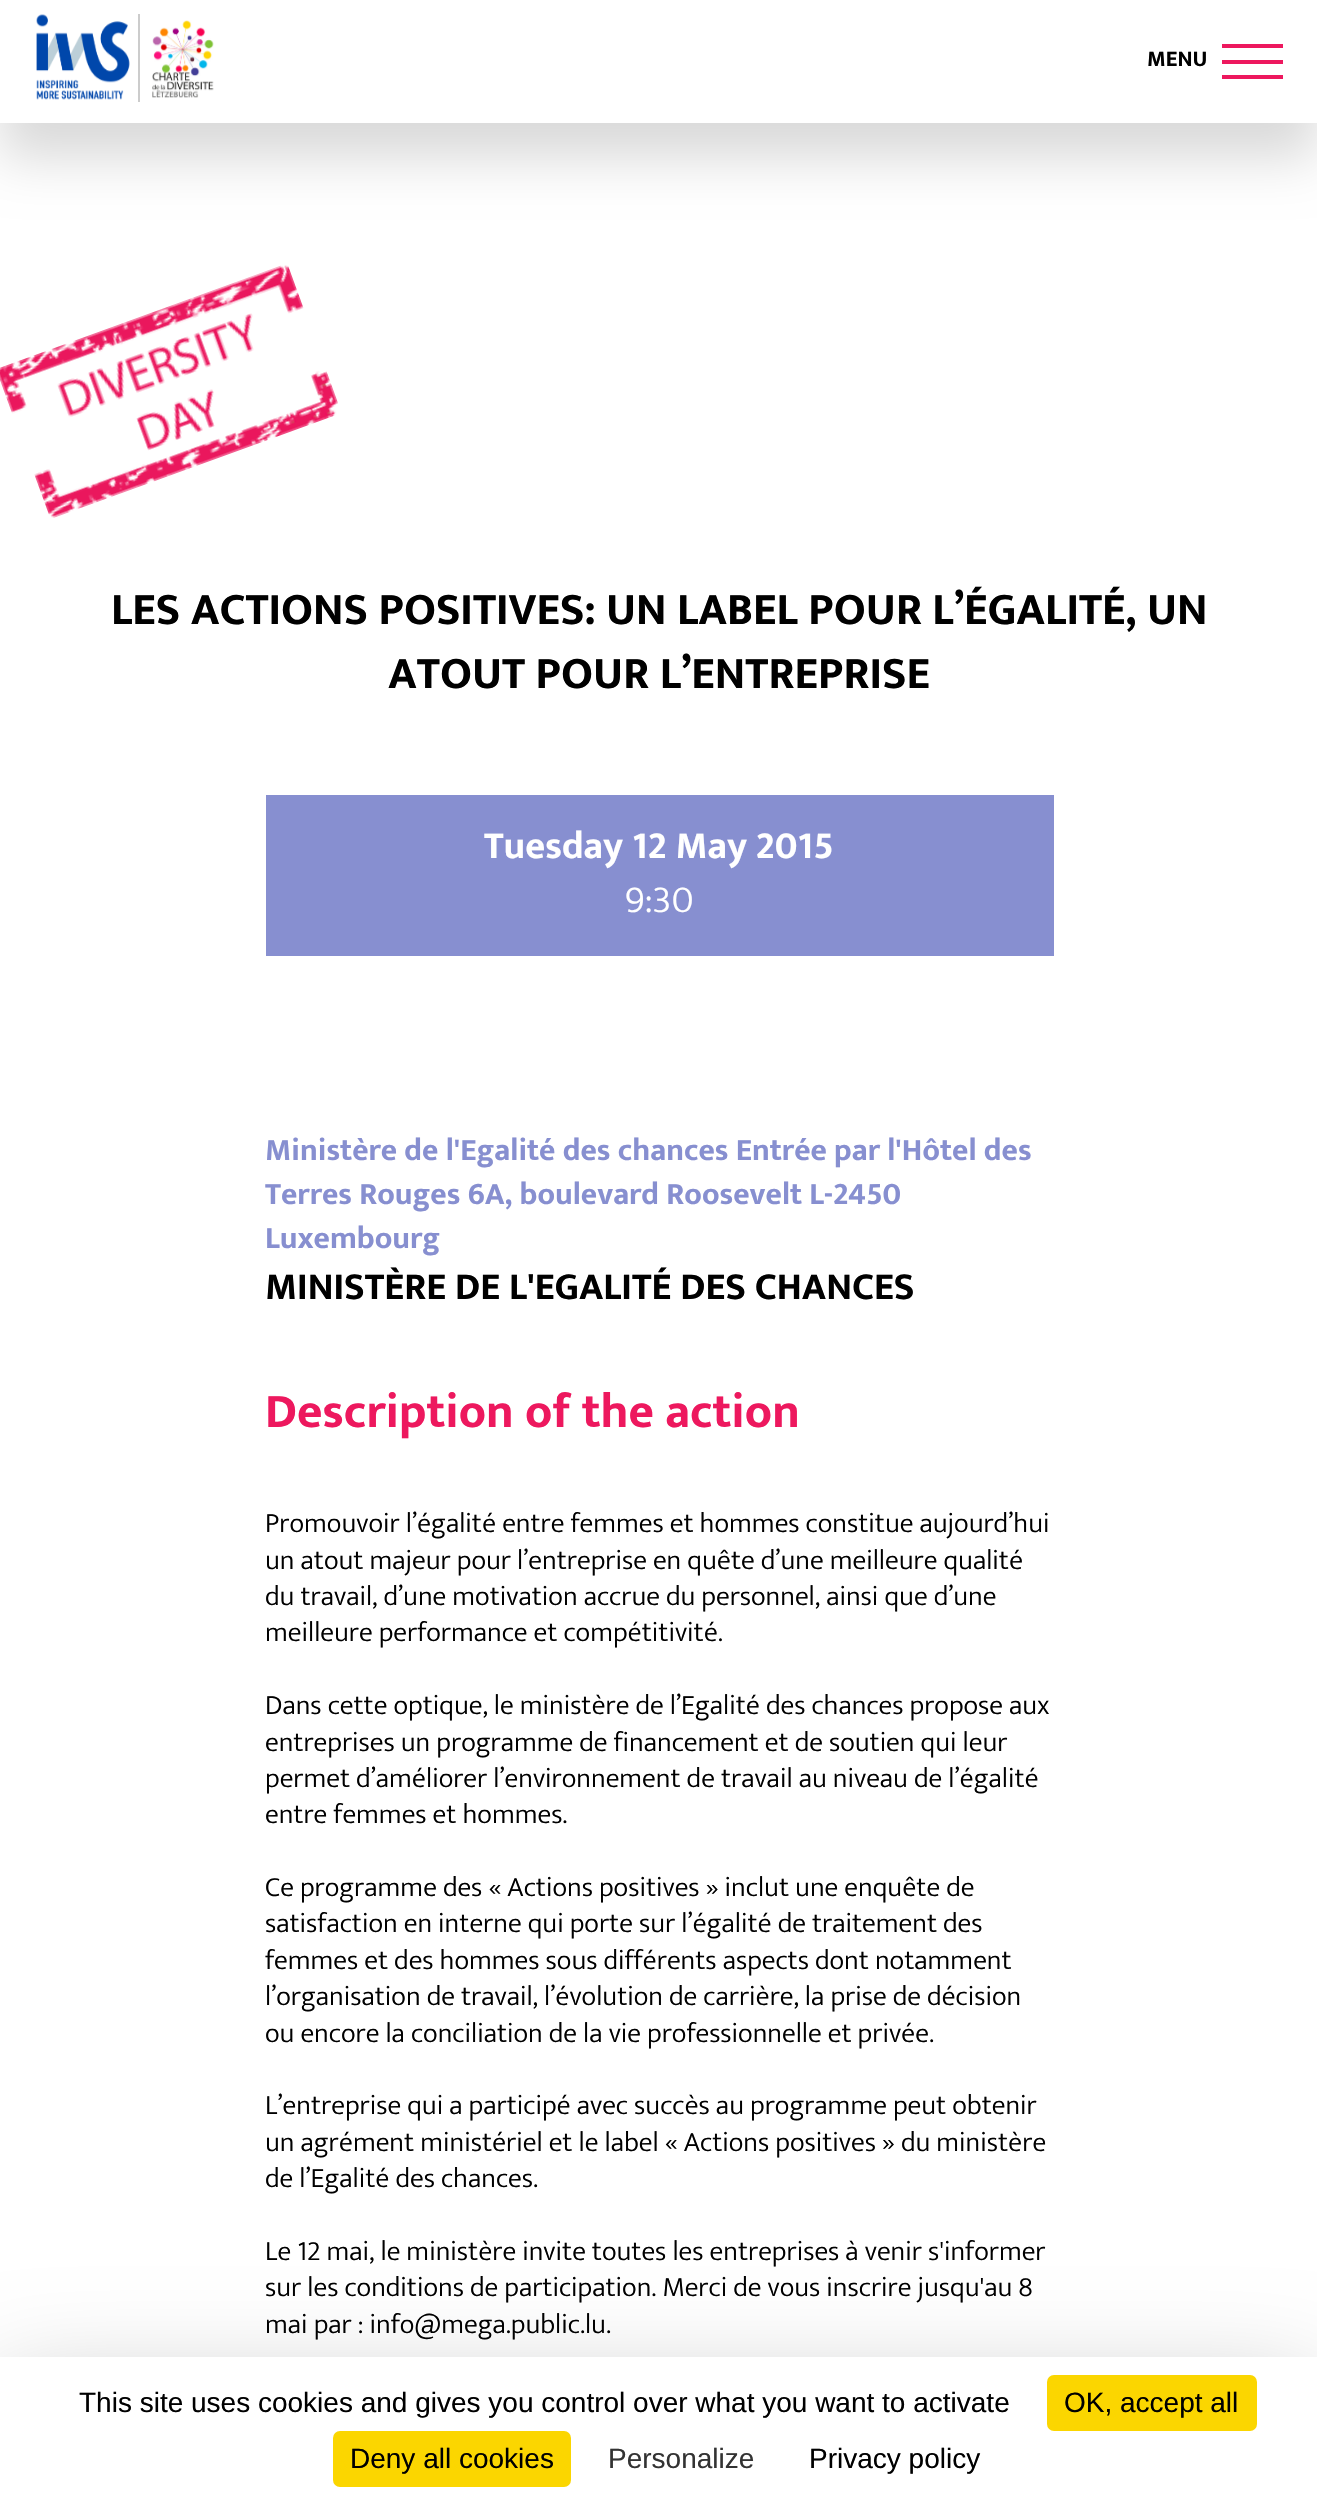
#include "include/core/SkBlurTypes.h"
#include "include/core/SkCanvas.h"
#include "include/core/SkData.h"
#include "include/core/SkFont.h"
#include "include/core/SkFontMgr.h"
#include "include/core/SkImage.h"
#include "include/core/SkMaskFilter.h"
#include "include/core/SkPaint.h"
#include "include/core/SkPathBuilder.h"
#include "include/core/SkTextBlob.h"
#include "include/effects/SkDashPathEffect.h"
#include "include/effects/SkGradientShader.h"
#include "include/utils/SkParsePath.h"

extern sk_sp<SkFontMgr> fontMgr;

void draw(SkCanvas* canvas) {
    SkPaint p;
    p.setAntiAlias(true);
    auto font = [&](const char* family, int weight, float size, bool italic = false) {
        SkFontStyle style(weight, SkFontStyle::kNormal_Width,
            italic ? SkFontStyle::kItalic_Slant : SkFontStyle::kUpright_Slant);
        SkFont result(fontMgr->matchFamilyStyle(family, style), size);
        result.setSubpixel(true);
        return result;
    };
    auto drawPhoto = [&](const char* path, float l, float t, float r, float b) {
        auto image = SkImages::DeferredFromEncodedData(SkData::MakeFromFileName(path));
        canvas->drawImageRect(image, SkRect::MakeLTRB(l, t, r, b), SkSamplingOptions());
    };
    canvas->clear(0xFFFFFFFF);
    p.setColor(0x26000000);
    p.setMaskFilter(SkMaskFilter::MakeBlur(kNormal_SkBlurStyle, 26));
    canvas->drawRect(SkRect::MakeLTRB(0, 35, 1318, 158), p);
    p.setMaskFilter(nullptr);
    p.setColor(0xFFFFFFFF);
    canvas->drawRect(SkRect::MakeLTRB(0, 0, 1317, 123), p);
    drawPhoto("media/1.png", 36, 14, 130, 100);
    p.setColor(0xFFCCCCCC);
    canvas->drawRect(SkRect::MakeLTRB(138, 14, 140, 102), p);
    drawPhoto("media/2.png", 152, 20, 214, 98);
    auto font1 = font("Ek Mukta", 700, 22.5f);
    p.setColor(0xFF000000);
    canvas->drawString("MENU", 1147, 66, font1, p);
    {
        const struct { float l, t, r, b; SkColor color; } items[] = {
            {1222, 60, 1283, 64, 0xFFED185E},
            {1222, 44, 1283, 48, 0xFFED185E},
            {1222, 75, 1283, 79, 0xFFED185E},
        };
        for (auto [l, t, r, b, color] : items) {
            p.setColor(color);
            canvas->drawRect(SkRect::MakeLTRB(l, t, r, b), p);
        }
    }
    drawPhoto("media/3.png", 0, 265, 338, 518);
    auto font2 = font("Ek Mukta", 700, 45.5f);
    p.setColor(0xFF000000);
    canvas->drawString("LES ACTIONS POSITIVES: UN LABEL POUR L’ÉGALITÉ, UN", 111, 624, font2, p);
    canvas->drawString("ATOUT POUR L’ENTREPRISE", 388, 688, font2, p);
    p.setColor(0xFF878FD0);
    canvas->drawRect(SkRect::MakeLTRB(266, 795, 1054, 956), p);
    auto font3 = font("Ek Mukta", 700, 38.5f);
    p.setColor(0xFFFFFFFF);
    canvas->drawString("Tuesday 12 May 2015", 484, 858, font3, p);
    auto font4 = font("Ek Mukta", 300, 38.5f);
    canvas->drawString("9:30", 625, 912, font4, p);
    auto font5 = font("Ek Mukta", 700, 31.5f);
    p.setColor(0xFF878FD0);
    {
        const struct { const char* s; float x, y; } items[] = {
            {"Ministère de l'Egalité des chances Entrée par l'Hôtel des", 265, 1160},
            {"Terres Rouges 6A, boulevard Roosevelt L-2450", 265, 1204},
            {"Luxembourg", 265, 1248},
        };
        for (auto [s, x, y] : items) {
            canvas->drawString(s, x, y, font5, p);
        }
    }
    p.setColor(0xFF000000);
    canvas->drawString("MINISTÈRE DE L'EGALITÉ DES CHANCES", 265, 1299, font3, p);
    auto font6 = font("Ek Mukta", 700, 49);
    p.setColor(0xFFED185E);
    canvas->drawString("Description of the action", 265, 1427, font6, p);
    auto font7 = font("Ek Mukta", 300, 28);
    p.setColor(0xFF000000);
    {
        const struct { const char* s; float x, y; } items[] = {
            {"Promouvoir l’égalité entre femmes et hommes constitue aujourd’hui", 265, 1532},
            {"un atout majeur pour l’entreprise en quête d’une meilleure qualité", 265, 1569},
            {"du travail, d’une motivation accrue du personnel, ainsi que d’une", 265, 1605},
            {"meilleure performance et compétitivité.", 265, 1641},
            {"Dans cette optique, le ministère de l’Egalité des chances propose aux", 265, 1714},
            {"entreprises un programme de financement et de soutien qui leur", 265, 1751},
            {"permet d’améliorer l’environnement de travail au niveau de l’égalité", 265, 1787},
            {"entre femmes et hommes.", 265, 1823},
            {"Ce programme des « Actions positives » inclut une enquête de", 265, 1896},
            {"satisfaction en interne qui porte sur l’égalité de traitement des", 265, 1932},
            {"femmes et des hommes sous différents aspects dont notamment", 265, 1969},
            {"l’organisation de travail, l’évolution de carrière, la prise de décision", 265, 2005},
            {"ou encore la conciliation de la vie professionnelle et privée.", 265, 2042},
            {"L’entreprise qui a participé avec succès au programme peut obtenir", 265, 2114},
            {"un agrément ministériel et le label « Actions positives » du ministère", 265, 2151},
            {"de l’Egalité des chances.", 265, 2187},
            {"Le 12 mai, le ministère invite toutes les entreprises à venir s'informer", 265, 2260},
            {"sur les conditions de participation. Merci de vous inscrire jusqu'au 8", 265, 2296},
            {"mai par : info@mega.public.lu.", 265, 2333},
        };
        for (auto [s, x, y] : items) {
            canvas->drawString(s, x, y, font7, p);
        }
    }
    p.setColor(0x40000000);
    p.setMaskFilter(SkMaskFilter::MakeBlur(kNormal_SkBlurStyle, 52.5f));
    canvas->drawRect(SkRect::MakeLTRB(0, 2392, 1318, 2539), p);
    p.setMaskFilter(nullptr);
    p.setColor(0xFFFFFFFF);
    canvas->drawRect(SkRect::MakeLTRB(0, 2357, 1317, 2504), p);
    auto font8 = font("Liberation Sans", 400, 28);
    p.setColor(0xFF000000);
    canvas->drawString("This site uses cookies and gives you control over what you want to activate", 79, 2412, font8, p);
    p.setColor(0xFFFBD600);
    canvas->drawRoundRect(SkRect::MakeLTRB(1047, 2375, 1257, 2431), 7, 7, p);
    p.setColor(0xFF000000);
    canvas->drawString("OK, accept all", 1064, 2412, font8, p);
    p.setColor(0xFFFBD600);
    canvas->drawRoundRect(SkRect::MakeLTRB(333, 2431, 571, 2487), 7, 7, p);
    p.setColor(0xFF000000);
    canvas->drawString("Deny all cookies", 350, 2468, font8, p);
    p.setColor(0xFF333333);
    canvas->drawString("Personalize", 608, 2468, font8, p);
    p.setColor(0xFF000000);
    canvas->drawString("Privacy policy", 809, 2468, font8, p);
}
